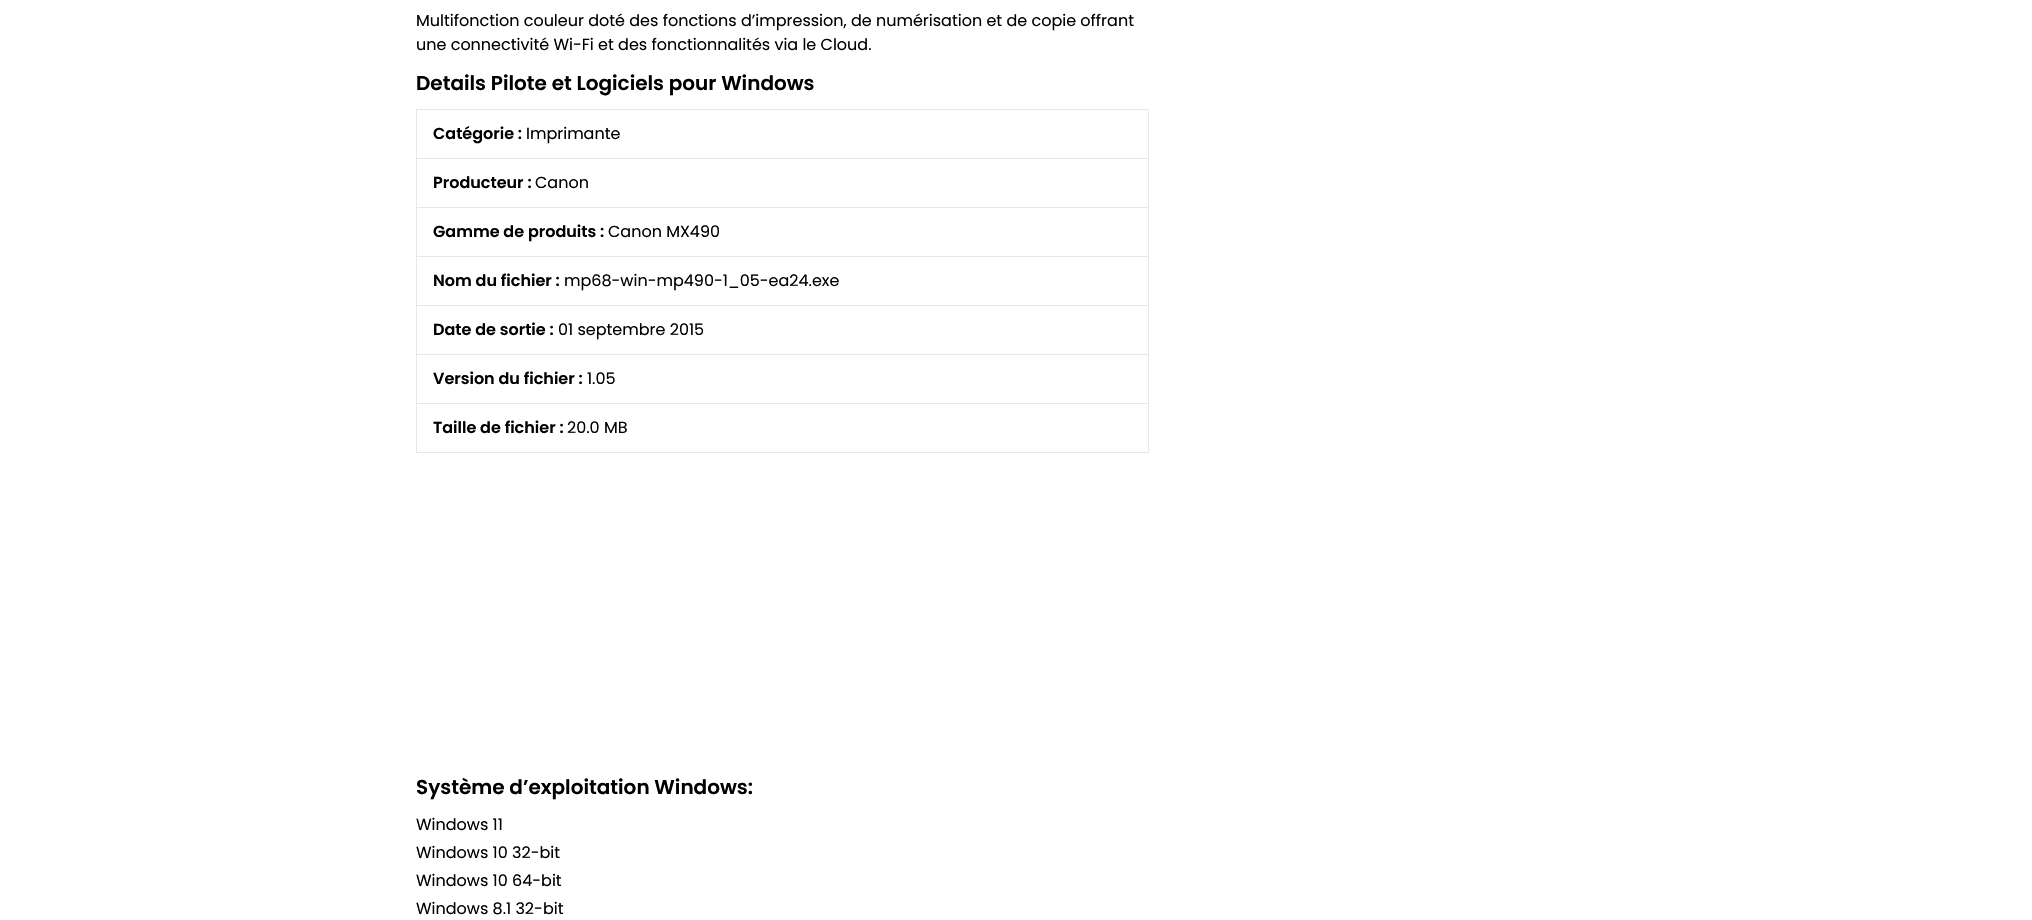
#include "include/core/SkBlurTypes.h"
#include "include/core/SkCanvas.h"
#include "include/core/SkData.h"
#include "include/core/SkFont.h"
#include "include/core/SkFontMgr.h"
#include "include/core/SkImage.h"
#include "include/core/SkMaskFilter.h"
#include "include/core/SkPaint.h"
#include "include/core/SkPathBuilder.h"
#include "include/core/SkTextBlob.h"
#include "include/effects/SkDashPathEffect.h"
#include "include/effects/SkGradientShader.h"
#include "include/utils/SkParsePath.h"

extern sk_sp<SkFontMgr> fontMgr;

void draw(SkCanvas* canvas) {
    SkPaint p;
    p.setAntiAlias(true);
    auto font = [&](const char* family, int weight, float size, bool italic = false) {
        SkFontStyle style(weight, SkFontStyle::kNormal_Width,
            italic ? SkFontStyle::kItalic_Slant : SkFontStyle::kUpright_Slant);
        SkFont result(fontMgr->matchFamilyStyle(family, style), size);
        result.setSubpixel(true);
        return result;
    };
    canvas->clear(0xFFFFFFFF);
    auto font1 = font("Poppins", 400, 16);
    p.setColor(0xFF000000);
    canvas->drawString("Multifonction couleur doté des fonctions d’impression, de numérisation et de copie offrant", 416, 26, font1, p);
    canvas->drawString("une connectivité Wi-Fi et des fonctionnalités via le Cloud.", 416, 50, font1, p);
    auto font2 = font("Poppins", 600, 20);
    canvas->drawString("Details Pilote et Logiciels pour Windows", 416, 90, font2, p);
    {
        const struct { float l, t, r, b; SkColor color; } items[] = {
            {416, 109, 1149, 110, 0xFFE5E7EB},
            {1148, 109, 1149, 453, 0xFFE5E7EB},
            {416, 452, 1149, 453, 0xFFE5E7EB},
            {416, 109, 417, 453, 0xFFE5E7EB},
            {416, 158, 1149, 159, 0xFFE5E7EB},
        };
        for (auto [l, t, r, b, color] : items) {
            p.setColor(color);
            canvas->drawRect(SkRect::MakeLTRB(l, t, r, b), p);
        }
    }
    auto font3 = font("Poppins", 600, 16);
    p.setColor(0xFF000000);
    canvas->drawString("Catégorie :", 433, 139, font3, p);
    canvas->drawString("Imprimante", 526, 139, font1, p);
    p.setColor(0xFFE5E7EB);
    canvas->drawRect(SkRect::MakeLTRB(416, 207, 1149, 208), p);
    p.setColor(0xFF000000);
    canvas->drawString("Producteur :", 433, 188, font3, p);
    canvas->drawString("Canon", 535, 188, font1, p);
    p.setColor(0xFFE5E7EB);
    canvas->drawRect(SkRect::MakeLTRB(416, 256, 1149, 257), p);
    p.setColor(0xFF000000);
    canvas->drawString("Gamme de produits :", 433, 237, font3, p);
    canvas->drawString("Canon MX490", 608, 237, font1, p);
    p.setColor(0xFFE5E7EB);
    canvas->drawRect(SkRect::MakeLTRB(416, 305, 1149, 306), p);
    p.setColor(0xFF000000);
    canvas->drawString("Nom du fichier :", 433, 286, font3, p);
    canvas->drawString("mp68-win-mp490-1_05-ea24.exe", 564, 286, font1, p);
    p.setColor(0xFFE5E7EB);
    canvas->drawRect(SkRect::MakeLTRB(416, 354, 1149, 355), p);
    p.setColor(0xFF000000);
    canvas->drawString("Date de sortie :", 433, 335, font3, p);
    canvas->drawString("01 septembre 2015", 558, 335, font1, p);
    p.setColor(0xFFE5E7EB);
    canvas->drawRect(SkRect::MakeLTRB(416, 403, 1149, 404), p);
    p.setColor(0xFF000000);
    canvas->drawString("Version du fichier :", 433, 384, font3, p);
    canvas->drawString("1.05", 587, 384, font1, p);
    canvas->drawString("Taille de fichier :", 433, 433, font3, p);
    canvas->drawString("20.0 MB", 567, 433, font1, p);
    canvas->drawString("Système d’exploitation Windows:", 416, 794, font2, p);
    {
        const struct { const char* s; float x, y; } items[] = {
            {"Windows 11", 416, 830},
            {"Windows 10 32-bit", 416, 858},
            {"Windows 10 64-bit", 416, 886},
            {"Windows 8.1 32-bit", 416, 914},
        };
        for (auto [s, x, y] : items) {
            canvas->drawString(s, x, y, font1, p);
        }
    }
}
